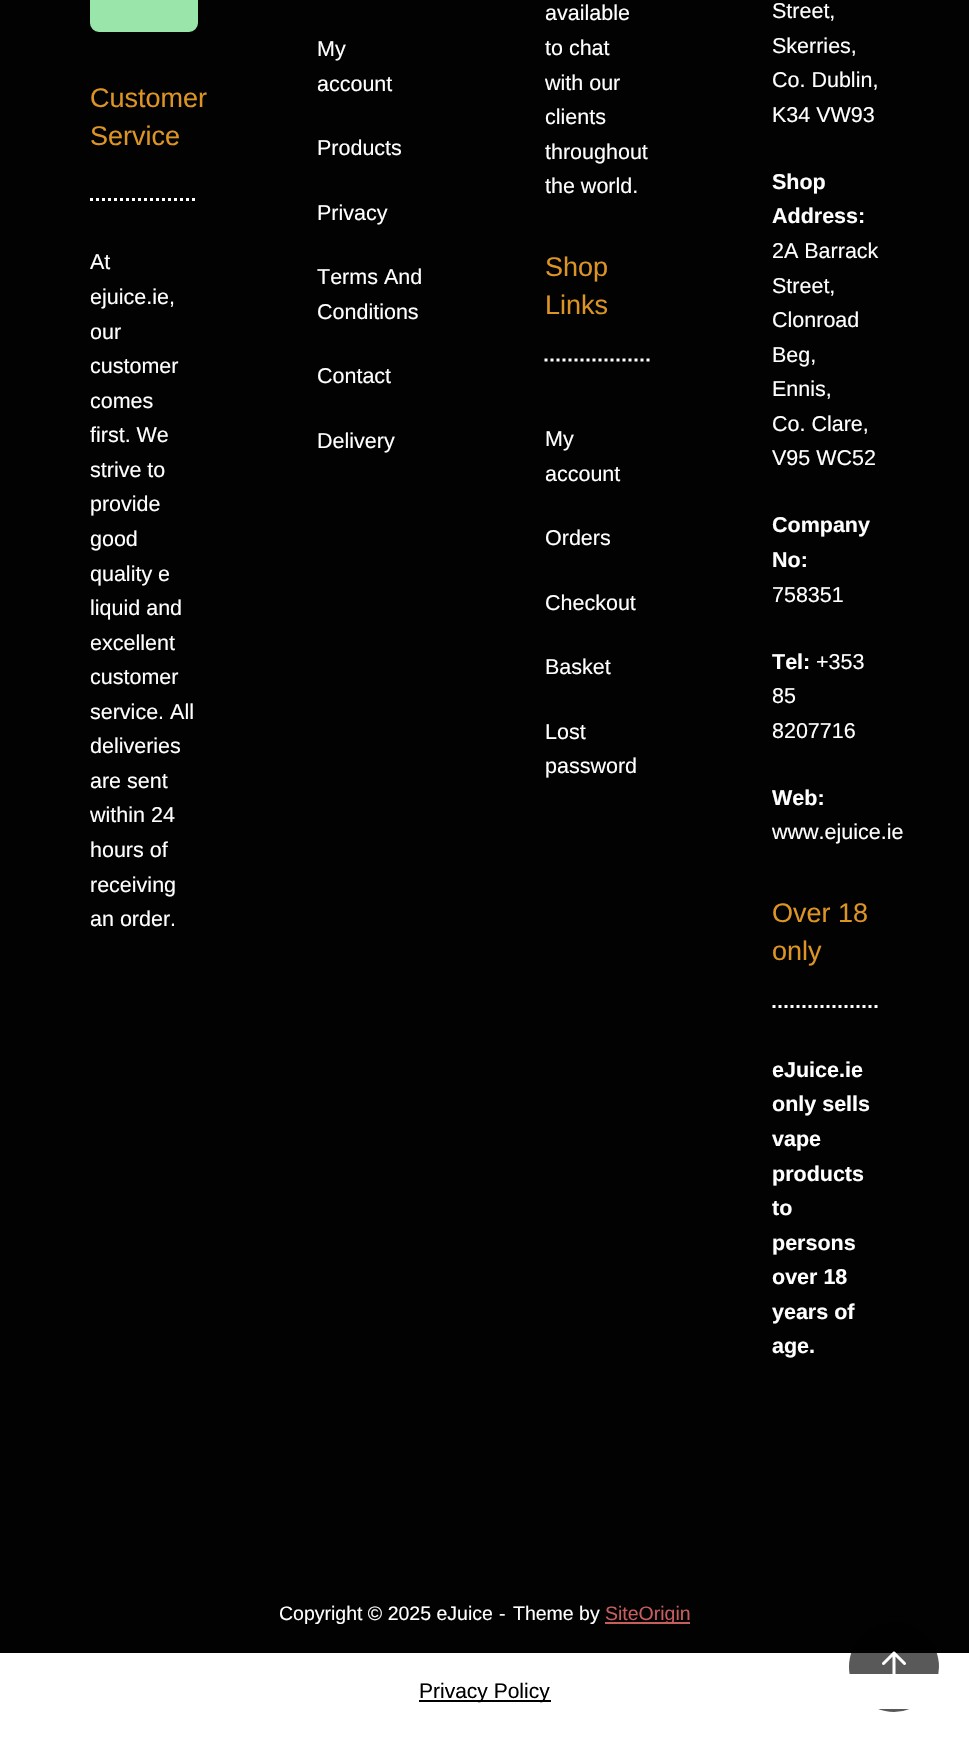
#include "include/core/SkBlurTypes.h"
#include "include/core/SkCanvas.h"
#include "include/core/SkData.h"
#include "include/core/SkFont.h"
#include "include/core/SkFontMgr.h"
#include "include/core/SkImage.h"
#include "include/core/SkMaskFilter.h"
#include "include/core/SkPaint.h"
#include "include/core/SkPathBuilder.h"
#include "include/core/SkTextBlob.h"
#include "include/effects/SkDashPathEffect.h"
#include "include/effects/SkGradientShader.h"
#include "include/utils/SkParsePath.h"

extern sk_sp<SkFontMgr> fontMgr;

void draw(SkCanvas* canvas) {
    SkPaint p;
    p.setAntiAlias(true);
    auto font = [&](const char* family, int weight, float size, bool italic = false) {
        SkFontStyle style(weight, SkFontStyle::kNormal_Width,
            italic ? SkFontStyle::kItalic_Slant : SkFontStyle::kUpright_Slant);
        SkFont result(fontMgr->matchFamilyStyle(family, style), size);
        result.setSubpixel(true);
        return result;
    };
    auto drawPhoto = [&](const char* path, float l, float t, float r, float b) {
        auto image = SkImages::DeferredFromEncodedData(SkData::MakeFromFileName(path));
        canvas->drawImageRect(image, SkRect::MakeLTRB(l, t, r, b), SkSamplingOptions());
    };
    canvas->clear(0xFFFFFFFF);
    p.setColor(0xFF020202);
    canvas->drawRect(SkRect::MakeLTRB(0, 0, 969, 1653), p);
    p.setColor(0xFF99E5AA);
    canvas->drawRoundRect(SkRect::MakeLTRB(91, -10, 197, 31), 8, 8, p);
    p.setStyle(SkPaint::kStroke_Style);
    p.setStrokeWidth(2);
    canvas->drawRoundRect(SkRect::MakeLTRB(91, -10, 197, 31), 8, 8, p);
    auto font1 = font("Liberation Sans", 400, 27);
    p.setStyle(SkPaint::kFill_Style);
    p.setColor(0xFFDC9524);
    canvas->drawString("Customer", 90, 107, font1, p);
    canvas->drawString("Service", 90, 145, font1, p);
    p.setStyle(SkPaint::kStroke_Style);
    p.setStrokeWidth(3);
    p.setColor(0xFFFFFFFF);
    p.setPathEffect(SkDashPathEffect::Make({{3, 3}}, 0));
    canvas->drawPath(SkPathBuilder().moveTo(90, 199.5f).lineTo(198, 199.5f).detach(), p);
    p.setPathEffect(nullptr);
    auto font2 = font("Liberation Sans", 400, 21.5f);
    p.setStyle(SkPaint::kFill_Style);
    {
        const struct { const char* s; float x, y; } items[] = {
            {"At", 90, 269},
            {"ejuice.ie,", 90, 304},
            {"our", 90, 339},
            {"customer", 90, 373},
            {"comes", 90, 408},
            {"first. We", 90, 442},
            {"strive to", 90, 477},
            {"provide", 90, 511},
            {"good", 90, 546},
            {"quality e", 90, 581},
            {"liquid and", 90, 615},
            {"excellent", 90, 650},
            {"customer", 90, 684},
            {"service. All", 90, 719},
            {"deliveries", 90, 753},
            {"are sent", 90, 788},
            {"within 24", 90, 822},
            {"hours of", 90, 857},
            {"receiving", 90, 892},
            {"an order.", 90, 926},
            {"My", 317, 56},
            {"account", 317, 91},
            {"Products", 317, 155},
            {"Privacy", 317, 220},
            {"Terms And", 317, 284},
            {"Conditions", 317, 319},
            {"Contact", 317, 383},
            {"Delivery", 317, 448},
            {"available", 545, 20},
            {"to chat", 545, 55},
            {"with our", 545, 90},
            {"clients", 545, 124},
            {"throughout", 545, 159},
            {"the world.", 545, 193},
        };
        for (auto [s, x, y] : items) {
            canvas->drawString(s, x, y, font2, p);
        }
    }
    p.setColor(0xFFDC9524);
    canvas->drawString("Shop", 545, 276, font1, p);
    canvas->drawString("Links", 545, 314, font1, p);
    p.setStyle(SkPaint::kStroke_Style);
    p.setColor(0xFFFFFFFF);
    p.setPathEffect(SkDashPathEffect::Make({{3, 3}}, 0));
    canvas->drawPath(SkPathBuilder().moveTo(544.5f, 360).lineTo(652.5f, 360).detach(), p);
    p.setPathEffect(nullptr);
    p.setStyle(SkPaint::kFill_Style);
    {
        const struct { const char* s; float x, y; } items[] = {
            {"My", 545, 446},
            {"account", 545, 481},
            {"Orders", 545, 545},
            {"Checkout", 545, 610},
            {"Basket", 545, 674},
            {"Lost", 545, 739},
            {"password", 545, 773},
            {"Street,", 772, 18},
            {"Skerries,", 772, 53},
            {"Co. Dublin,", 772, 87},
            {"K34 VW93", 772, 122},
        };
        for (auto [s, x, y] : items) {
            canvas->drawString(s, x, y, font2, p);
        }
    }
    auto font3 = font("Liberation Sans", 700, 21.5f);
    canvas->drawString("Shop", 772, 189, font3, p);
    canvas->drawString("Address:", 772, 223, font3, p);
    {
        const struct { const char* s; float x, y; } items[] = {
            {"2A Barrack", 772, 258},
            {"Street,", 772, 293},
            {"Clonroad", 772, 327},
            {"Beg,", 772, 362},
            {"Ennis,", 772, 396},
            {"Co. Clare,", 772, 431},
            {"V95 WC52", 772, 465},
        };
        for (auto [s, x, y] : items) {
            canvas->drawString(s, x, y, font2, p);
        }
    }
    canvas->drawString("Company", 772, 532, font3, p);
    canvas->drawString("No:", 772, 567, font3, p);
    canvas->drawString("758351", 772, 602, font2, p);
    canvas->drawString("Tel:", 772, 669, font3, p);
    {
        const struct { const char* s; float x, y; } items[] = {
            {"+353", 816, 669},
            {"85", 772, 703},
            {"8207716", 772, 738},
        };
        for (auto [s, x, y] : items) {
            canvas->drawString(s, x, y, font2, p);
        }
    }
    canvas->drawString("Web:", 772, 805, font3, p);
    canvas->drawString("www.ejuice.ie", 772, 839, font2, p);
    p.setColor(0xFFDC9524);
    canvas->drawString("Over 18", 772, 922, font1, p);
    canvas->drawString("only", 772, 960, font1, p);
    p.setStyle(SkPaint::kStroke_Style);
    p.setColor(0xFFFFFFFF);
    p.setPathEffect(SkDashPathEffect::Make({{3, 3}}, 0));
    canvas->drawPath(SkPathBuilder().moveTo(772.5f, 1006.5f).lineTo(879, 1006.5f).detach(), p);
    p.setPathEffect(nullptr);
    p.setStyle(SkPaint::kFill_Style);
    {
        const struct { const char* s; float x, y; } items[] = {
            {"eJuice.ie", 772, 1077},
            {"only sells", 772, 1111},
            {"vape", 772, 1146},
            {"products", 772, 1181},
            {"to", 772, 1215},
            {"persons", 772, 1250},
            {"over 18", 772, 1284},
            {"years of", 772, 1319},
            {"age.", 772, 1353},
        };
        for (auto [s, x, y] : items) {
            canvas->drawString(s, x, y, font3, p);
        }
    }
    auto font4 = font("Liberation Sans", 400, 19.5f);
    {
        const struct { const char* s; float x, y; } items[] = {
            {"Copyright © 2025 eJuice", 279, 1620},
            {"-", 499, 1620},
            {"Theme by", 513, 1620},
        };
        for (auto [s, x, y] : items) {
            canvas->drawString(s, x, y, font4, p);
        }
    }
    p.setColor(0xFFC75D5D);
    canvas->drawRect(SkRect::MakeLTRB(605, 1622, 690, 1624), p);
    canvas->drawString("SiteOrigin", 605, 1620, font4, p);
    p.setColor(0xA6000000);
    canvas->drawCircle(894, 1667, 45, p);
    p.setColor(0xFFFFFFFF);
    canvas->drawRect(SkRect::MakeLTRB(849, 1674, 939, 1709), p);
    p.setColor(0xFF000000);
    canvas->drawRect(SkRect::MakeLTRB(419, 1700, 551, 1702), p);
    auto font5 = font("Liberation Sans", 400, 21);
    canvas->drawString("Privacy Policy", 419, 1698, font5, p);
    drawPhoto("media/1.png", 882, 1651, 906, 1674);
}
